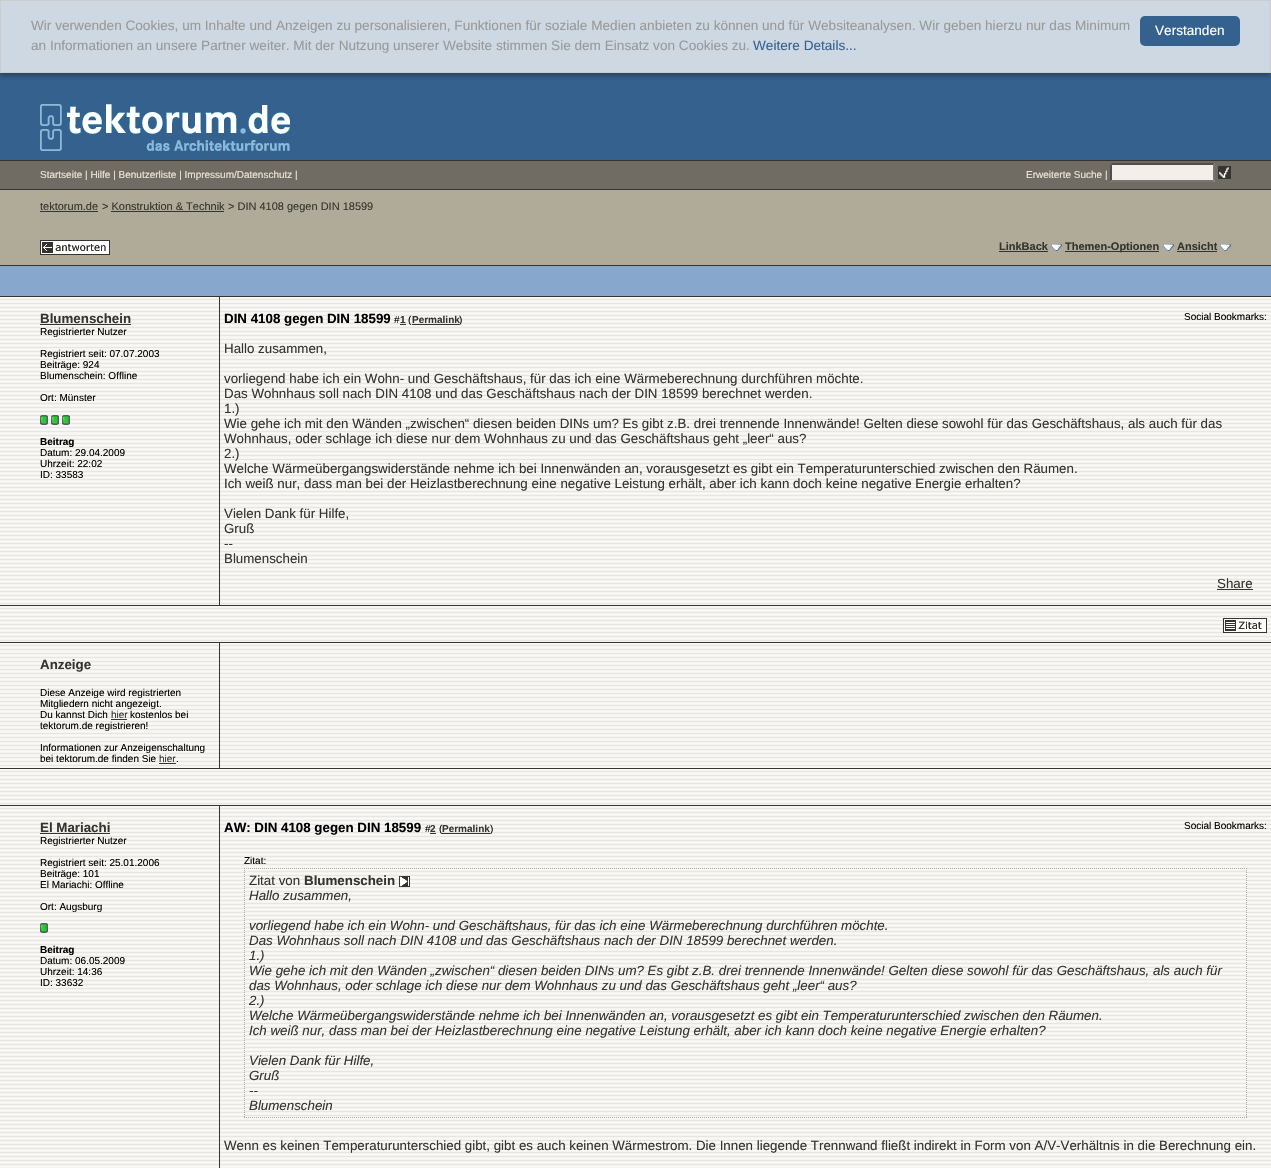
#include "include/core/SkBlurTypes.h"
#include "include/core/SkCanvas.h"
#include "include/core/SkData.h"
#include "include/core/SkFont.h"
#include "include/core/SkFontMgr.h"
#include "include/core/SkImage.h"
#include "include/core/SkMaskFilter.h"
#include "include/core/SkPaint.h"
#include "include/core/SkPathBuilder.h"
#include "include/core/SkTextBlob.h"
#include "include/effects/SkDashPathEffect.h"
#include "include/effects/SkGradientShader.h"
#include "include/utils/SkParsePath.h"

extern sk_sp<SkFontMgr> fontMgr;

void draw(SkCanvas* canvas) {
    SkPaint p;
    p.setAntiAlias(true);
    auto font = [&](const char* family, int weight, float size, bool italic = false) {
        SkFontStyle style(weight, SkFontStyle::kNormal_Width,
            italic ? SkFontStyle::kItalic_Slant : SkFontStyle::kUpright_Slant);
        SkFont result(fontMgr->matchFamilyStyle(family, style), size);
        result.setSubpixel(true);
        return result;
    };
    auto drawPhoto = [&](const char* path, float l, float t, float r, float b) {
        auto image = SkImages::DeferredFromEncodedData(SkData::MakeFromFileName(path));
        canvas->drawImageRect(image, SkRect::MakeLTRB(l, t, r, b), SkSamplingOptions());
    };
    canvas->clear(0xFF35618E);
    p.setColor(0x4D000000);
    p.setMaskFilter(SkMaskFilter::MakeBlur(kNormal_SkBlurStyle, 2.5f));
    canvas->drawRect(SkRect::MakeLTRB(0, 3, 1271, 76), p);
    p.setMaskFilter(nullptr);
    p.setColor(0xFFCDD8E3);
    canvas->drawRect(SkRect::MakeLTRB(0.5f, 0.5f, 1270.5f, 72.5f), p);
    p.setStyle(SkPaint::kStroke_Style);
    p.setStrokeWidth(1);
    p.setColor(0xFFCCCCCC);
    canvas->drawRect(SkRect::MakeLTRB(0.5f, 0.5f, 1270.5f, 72.5f), p);
    auto font1 = font("Liberation Sans", 400, 13.6f);
    p.setStyle(SkPaint::kFill_Style);
    p.setColor(0xFF999999);
    canvas->drawString("Wir verwenden Cookies, um Inhalte und Anzeigen zu personalisieren, Funktionen für soziale Medien anbieten zu können und für Websiteanalysen. Wir geben hierzu nur das Minimum", 31, 30, font1, p);
    canvas->drawString("an Informationen an unsere Partner weiter. Mit der Nutzung unserer Website stimmen Sie dem Einsatz von Cookies zu.", 31, 50, font1, p);
    p.setColor(0xFF35618E);
    canvas->drawString("Weitere Details...", 753, 50, font1, p);
    canvas->drawRoundRect(SkRect::MakeLTRB(1140, 16, 1240, 46), 5, 5, p);
    p.setColor(0xFFFFFFFF);
    canvas->drawString("Verstanden", 1155, 35, font1, p);
    drawPhoto("media/1.png", 40, 104, 290, 151);
    {
        const struct { float l, t, r, b; SkColor color; } items[] = {
            {0, 161, 1271, 189, 0xFF706B63},
            {0, 160, 1271, 161, 0xFF35342F},
            {0, 189, 1271, 190, 0xFF35342F},
        };
        for (auto [l, t, r, b, color] : items) {
            p.setColor(color);
            canvas->drawRect(SkRect::MakeLTRB(l, t, r, b), p);
        }
    }
    auto font2 = font("Liberation Sans", 400, 10);
    p.setColor(0xFFEFE6D8);
    canvas->drawString("Startseite | Hilfe | Benutzerliste | Impressum/Datenschutz |", 40, 178, font2, p);
    canvas->drawString("Erweiterte Suche |", 1026, 178, font2, p);
    p.setColor(0xFFF4F0E9);
    canvas->drawRect(SkRect::MakeLTRB(1110, 163, 1215, 182), p);
    p.setColor(0xFF4F4F4F);
    canvas->drawPath(SkPathBuilder().moveTo(1110, 163).lineTo(1215, 163).lineTo(1213, 165).lineTo(1112, 165).close().detach(), p);
    p.setColor(0xFF767676);
    canvas->drawPath(SkPathBuilder().moveTo(1215, 163).lineTo(1215, 182).lineTo(1213, 180).lineTo(1213, 165).close().detach(), p);
    canvas->drawPath(SkPathBuilder().moveTo(1215, 182).lineTo(1110, 182).lineTo(1112, 180).lineTo(1213, 180).close().detach(), p);
    p.setColor(0xFF4F4F4F);
    canvas->drawPath(SkPathBuilder().moveTo(1110, 182).lineTo(1110, 163).lineTo(1112, 165).lineTo(1112, 180).close().detach(), p);
    drawPhoto("media/2.png", 1218, 166, 1231, 179);
    p.setColor(0xFFAFAB98);
    canvas->drawRect(SkRect::MakeLTRB(0, 190, 1271, 265), p);
    p.setColor(0xFF35342F);
    canvas->drawRect(SkRect::MakeLTRB(0, 265, 1271, 266), p);
    auto font3 = font("Liberation Sans", 400, 11);
    canvas->drawString("tektorum.de", 40, 210, font3, p);
    canvas->drawRect(SkRect::MakeLTRB(40, 211, 98, 212), p);
    canvas->drawString("> Konstruktion & Technik", 102, 210, font3, p);
    canvas->drawRect(SkRect::MakeLTRB(111, 211, 224, 212), p);
    canvas->drawString("> DIN 4108 gegen DIN 18599", 228, 210, font3, p);
    drawPhoto("media/3.png", 40, 240, 110, 255);
    auto font4 = font("Liberation Sans", 700, 11);
    canvas->drawString("LinkBack", 999, 250, font4, p);
    canvas->drawRect(SkRect::MakeLTRB(999, 251, 1048, 252), p);
    drawPhoto("media/4.png", 1051, 244, 1062, 251);
    canvas->drawRect(SkRect::MakeLTRB(1065, 251, 1159, 252), p);
    canvas->drawString("Themen-Optionen", 1065, 250, font4, p);
    drawPhoto("media/4.png", 1163, 244, 1174, 251);
    canvas->drawString("Ansicht", 1177, 250, font4, p);
    canvas->drawRect(SkRect::MakeLTRB(1177, 251, 1217, 252), p);
    drawPhoto("media/4.png", 1220, 244, 1231, 251);
    p.setColor(0xFF87A8CC);
    canvas->drawRect(SkRect::MakeLTRB(0, 266, 1271, 296), p);
    p.setColor(0xFF35342F);
    canvas->drawRect(SkRect::MakeLTRB(0, 296, 1271, 297), p);
    drawPhoto("media/5.png", 0, 297, 1271, 605);
    canvas->drawRect(SkRect::MakeLTRB(219, 297, 220, 606), p);
    canvas->drawRect(SkRect::MakeLTRB(0, 605, 1271, 606), p);
    auto font5 = font("Liberation Sans", 700, 13.33f);
    canvas->drawString("Blumenschein", 40, 323, font5, p);
    canvas->drawRect(SkRect::MakeLTRB(40, 324, 131, 325), p);
    p.setColor(0xFF000000);
    {
        const struct { const char* s; float x, y; } items[] = {
            {"Registrierter Nutzer", 40, 335},
            {"Registriert seit: 07.07.2003", 40, 357},
            {"Beiträge: 924", 40, 368},
            {"Blumenschein: Offline", 40, 379},
            {"Ort: Münster", 40, 401},
        };
        for (auto [s, x, y] : items) {
            canvas->drawString(s, x, y, font2, p);
        }
    }
    drawPhoto("media/6.png", 40, 415, 48, 425);
    drawPhoto("media/6.png", 51, 415, 59, 425);
    drawPhoto("media/6.png", 62, 415, 70, 425);
    auto font6 = font("Liberation Sans", 700, 10);
    canvas->drawString("Beitrag", 40, 445, font6, p);
    {
        const struct { const char* s; float x, y; } items[] = {
            {"Datum: 29.04.2009", 40, 456},
            {"Uhrzeit: 22:02", 40, 467},
            {"ID: 33583", 40, 478},
        };
        for (auto [s, x, y] : items) {
            canvas->drawString(s, x, y, font2, p);
        }
    }
    canvas->drawString("DIN 4108 gegen DIN 18599", 224, 323, font5, p);
    canvas->drawString("#", 394, 323, font2, p);
    p.setColor(0xFF35342F);
    canvas->drawString("1", 400, 323, font6, p);
    canvas->drawRect(SkRect::MakeLTRB(400, 324, 406, 325), p);
    p.setColor(0xFF000000);
    canvas->drawString("(", 408, 323, font2, p);
    p.setColor(0xFF35342F);
    canvas->drawString("Permalink", 412, 323, font6, p);
    canvas->drawRect(SkRect::MakeLTRB(412, 324, 459, 325), p);
    p.setColor(0xFF000000);
    canvas->drawString(")", 459, 323, font2, p);
    canvas->drawString("Social Bookmarks:", 1184, 320, font2, p);
    auto font7 = font("Liberation Sans", 400, 13.33f);
    p.setColor(0xFF35342F);
    {
        const struct { const char* s; float x, y; } items[] = {
            {"Hallo zusammen,", 224, 353},
            {"vorliegend habe ich ein Wohn- und Geschäftshaus, für das ich eine Wärmeberechnung durchführen möchte.", 224, 383},
            {"Das Wohnhaus soll nach DIN 4108 und das Geschäftshaus nach der DIN 18599 berechnet werden.", 224, 398},
            {"1.)", 224, 413},
            {"Wie gehe ich mit den Wänden „zwischen“ diesen beiden DINs um? Es gibt z.B. drei trennende Innenwände! Gelten diese sowohl für das Geschäftshaus, als auch für das", 224, 428},
            {"Wohnhaus, oder schlage ich diese nur dem Wohnhaus zu und das Geschäftshaus geht „leer“ aus?", 224, 443},
            {"2.)", 224, 458},
            {"Welche Wärmeübergangswiderstände nehme ich bei Innenwänden an, vorausgesetzt es gibt ein Temperaturunterschied zwischen den Räumen.", 224, 473},
            {"Ich weiß nur, dass man bei der Heizlastberechnung eine negative Leistung erhält, aber ich kann doch keine negative Energie erhalten?", 224, 488},
            {"Vielen Dank für Hilfe,", 224, 518},
            {"Gruß", 224, 533},
            {"--", 224, 548},
            {"Blumenschein", 224, 563},
            {"Share", 1217, 588},
        };
        for (auto [s, x, y] : items) {
            canvas->drawString(s, x, y, font7, p);
        }
    }
    canvas->drawRect(SkRect::MakeLTRB(1217, 589, 1253, 590), p);
    drawPhoto("media/7.png", 0, 606, 1271, 642);
    canvas->drawRect(SkRect::MakeLTRB(0, 642, 1271, 643), p);
    drawPhoto("media/8.png", 1223, 618, 1267, 633);
    drawPhoto("media/9.png", 0, 643, 1271, 768);
    canvas->drawRect(SkRect::MakeLTRB(219, 643, 220, 769), p);
    canvas->drawRect(SkRect::MakeLTRB(0, 768, 1271, 769), p);
    canvas->drawString("Anzeige", 40, 669, font5, p);
    p.setColor(0xFF000000);
    {
        const struct { const char* s; float x, y; } items[] = {
            {"Diese Anzeige wird registrierten", 40, 696},
            {"Mitgliedern nicht angezeigt.", 40, 707},
            {"Du kannst Dich", 40, 718},
        };
        for (auto [s, x, y] : items) {
            canvas->drawString(s, x, y, font2, p);
        }
    }
    p.setColor(0xFF35342F);
    canvas->drawString("hier", 111, 718, font2, p);
    canvas->drawRect(SkRect::MakeLTRB(111, 719, 127, 720), p);
    p.setColor(0xFF000000);
    {
        const struct { const char* s; float x, y; } items[] = {
            {"kostenlos bei", 130, 718},
            {"tektorum.de registrieren!", 40, 729},
            {"Informationen zur Anzeigenschaltung", 40, 751},
            {"bei tektorum.de finden Sie", 40, 762},
        };
        for (auto [s, x, y] : items) {
            canvas->drawString(s, x, y, font2, p);
        }
    }
    p.setColor(0xFF35342F);
    canvas->drawString("hier", 159, 762, font2, p);
    canvas->drawRect(SkRect::MakeLTRB(159, 763, 176, 764), p);
    p.setColor(0xFF000000);
    canvas->drawString(".", 176, 762, font2, p);
    drawPhoto("media/7.png", 0, 769, 1271, 805);
    p.setColor(0xFF35342F);
    canvas->drawRect(SkRect::MakeLTRB(0, 805, 1271, 806), p);
    drawPhoto("media/10.png", 0, 806, 1271, 1168);
    canvas->drawRect(SkRect::MakeLTRB(219, 806, 220, 1168), p);
    canvas->drawString("El Mariachi", 40, 832, font5, p);
    canvas->drawRect(SkRect::MakeLTRB(40, 833, 110, 834), p);
    p.setColor(0xFF000000);
    {
        const struct { const char* s; float x, y; } items[] = {
            {"Registrierter Nutzer", 40, 844},
            {"Registriert seit: 25.01.2006", 40, 866},
            {"Beiträge: 101", 40, 877},
            {"El Mariachi: Offline", 40, 888},
            {"Ort: Augsburg", 40, 910},
        };
        for (auto [s, x, y] : items) {
            canvas->drawString(s, x, y, font2, p);
        }
    }
    drawPhoto("media/6.png", 40, 923, 48, 933);
    canvas->drawString("Beitrag", 40, 953, font6, p);
    {
        const struct { const char* s; float x, y; } items[] = {
            {"Datum: 06.05.2009", 40, 964},
            {"Uhrzeit: 14:36", 40, 975},
            {"ID: 33632", 40, 986},
        };
        for (auto [s, x, y] : items) {
            canvas->drawString(s, x, y, font2, p);
        }
    }
    canvas->drawString("AW: DIN 4108 gegen DIN 18599", 224, 832, font5, p);
    canvas->drawString("#", 425, 832, font2, p);
    p.setColor(0xFF35342F);
    canvas->drawString("2", 430, 832, font6, p);
    canvas->drawRect(SkRect::MakeLTRB(430, 833, 436, 834), p);
    p.setColor(0xFF000000);
    canvas->drawString("(", 439, 832, font2, p);
    p.setColor(0xFF35342F);
    canvas->drawString("Permalink", 442, 832, font6, p);
    canvas->drawRect(SkRect::MakeLTRB(442, 833, 490, 834), p);
    p.setColor(0xFF000000);
    {
        const struct { const char* s; float x, y; } items[] = {
            {")", 490, 832},
            {"Social Bookmarks:", 1184, 829},
            {"Zitat:", 244, 864},
        };
        for (auto [s, x, y] : items) {
            canvas->drawString(s, x, y, font2, p);
        }
    }
    drawPhoto("media/11.png", 244, 868, 1247, 1118);
    p.setStyle(SkPaint::kStroke_Style);
    p.setColor(0xFFAFAB98);
    p.setPathEffect(SkDashPathEffect::Make({{1, 1}}, 0));
    canvas->drawPath(SkPathBuilder().moveTo(244, 868.5f).lineTo(1247, 868.5f).detach(), p);
    p.setPathEffect(nullptr);
    p.setPathEffect(SkDashPathEffect::Make({{1, 1}}, 0));
    canvas->drawPath(SkPathBuilder().moveTo(1246.5f, 868).lineTo(1246.5f, 1118).detach(), p);
    p.setPathEffect(nullptr);
    p.setPathEffect(SkDashPathEffect::Make({{1, 1}}, 0));
    canvas->drawPath(SkPathBuilder().moveTo(244, 1117.5f).lineTo(1247, 1117.5f).detach(), p);
    p.setPathEffect(nullptr);
    p.setPathEffect(SkDashPathEffect::Make({{1, 1}}, 0));
    canvas->drawPath(SkPathBuilder().moveTo(244.5f, 868).lineTo(244.5f, 1118).detach(), p);
    p.setPathEffect(nullptr);
    p.setStyle(SkPaint::kFill_Style);
    p.setColor(0xFF35342F);
    canvas->drawString("Zitat von", 249, 885, font7, p);
    canvas->drawString("Blumenschein", 304, 885, font5, p);
    drawPhoto("media/12.png", 399, 876, 410, 887);
    auto font8 = font("Liberation Sans", 400, 13.33f, true);
    {
        const struct { const char* s; float x, y; } items[] = {
            {"Hallo zusammen,", 249, 900},
            {"vorliegend habe ich ein Wohn- und Geschäftshaus, für das ich eine Wärmeberechnung durchführen möchte.", 249, 930},
            {"Das Wohnhaus soll nach DIN 4108 und das Geschäftshaus nach der DIN 18599 berechnet werden.", 249, 945},
            {"1.)", 249, 960},
            {"Wie gehe ich mit den Wänden „zwischen“ diesen beiden DINs um? Es gibt z.B. drei trennende Innenwände! Gelten diese sowohl für das Geschäftshaus, als auch für", 249, 975},
            {"das Wohnhaus, oder schlage ich diese nur dem Wohnhaus zu und das Geschäftshaus geht „leer“ aus?", 249, 990},
            {"2.)", 249, 1005},
            {"Welche Wärmeübergangswiderstände nehme ich bei Innenwänden an, vorausgesetzt es gibt ein Temperaturunterschied zwischen den Räumen.", 249, 1020},
            {"Ich weiß nur, dass man bei der Heizlastberechnung eine negative Leistung erhält, aber ich kann doch keine negative Energie erhalten?", 249, 1035},
            {"Vielen Dank für Hilfe,", 249, 1065},
            {"Gruß", 249, 1080},
            {"--", 249, 1095},
            {"Blumenschein", 249, 1110},
        };
        for (auto [s, x, y] : items) {
            canvas->drawString(s, x, y, font8, p);
        }
    }
    canvas->drawString("Wenn es keinen Temperaturunterschied gibt, gibt es auch keinen Wärmestrom. Die Innen liegende Trennwand fließt indirekt in Form von A/V-Verhältnis in die Berechnung ein.", 224, 1150, font7, p);
}
